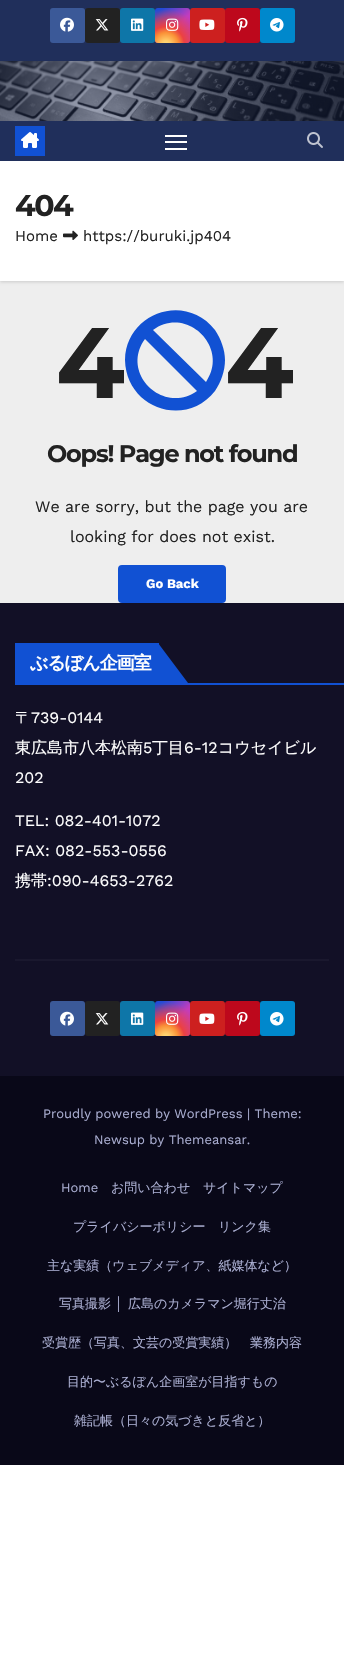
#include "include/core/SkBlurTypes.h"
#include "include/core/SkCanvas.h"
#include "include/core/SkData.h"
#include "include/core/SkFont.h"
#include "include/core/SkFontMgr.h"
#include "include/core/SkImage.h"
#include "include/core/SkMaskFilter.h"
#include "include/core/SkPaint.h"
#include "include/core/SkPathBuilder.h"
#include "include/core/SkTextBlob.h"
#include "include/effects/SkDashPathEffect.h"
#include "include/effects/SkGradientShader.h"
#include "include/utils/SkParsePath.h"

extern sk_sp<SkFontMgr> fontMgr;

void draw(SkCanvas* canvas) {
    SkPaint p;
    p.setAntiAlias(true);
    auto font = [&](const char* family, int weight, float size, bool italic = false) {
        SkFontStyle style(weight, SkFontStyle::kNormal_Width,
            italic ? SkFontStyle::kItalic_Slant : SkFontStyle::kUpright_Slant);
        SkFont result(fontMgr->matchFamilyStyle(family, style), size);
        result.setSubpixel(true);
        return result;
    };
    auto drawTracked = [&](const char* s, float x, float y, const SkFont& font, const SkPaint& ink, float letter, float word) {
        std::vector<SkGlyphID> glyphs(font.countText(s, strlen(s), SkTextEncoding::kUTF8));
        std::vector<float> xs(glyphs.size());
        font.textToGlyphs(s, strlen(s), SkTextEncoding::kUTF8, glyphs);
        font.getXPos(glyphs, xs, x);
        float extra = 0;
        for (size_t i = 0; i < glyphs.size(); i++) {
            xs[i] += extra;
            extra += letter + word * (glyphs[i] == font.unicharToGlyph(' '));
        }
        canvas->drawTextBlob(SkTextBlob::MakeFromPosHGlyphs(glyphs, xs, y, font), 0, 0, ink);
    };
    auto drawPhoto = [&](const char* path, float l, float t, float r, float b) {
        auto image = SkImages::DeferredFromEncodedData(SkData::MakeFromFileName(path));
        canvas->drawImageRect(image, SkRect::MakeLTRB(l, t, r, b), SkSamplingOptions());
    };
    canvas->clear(0xFFFFFFFF);
    p.setColor(0xFFEEEEEE);
    canvas->drawRect(SkRect::MakeLTRB(0, 281, 344, 603), p);
    p.setColor(0xFF202F5B);
    canvas->drawRect(SkRect::MakeLTRB(0, 0, 344, 61), p);
    p.setColor(0xFF3B5998);
    canvas->drawRoundRect(SkRect::MakeLTRB(50, 8, 85, 43), 3, 3, p);
    drawPhoto("media/1.png", 60, 17, 74, 32);
    p.setColor(0xFF222222);
    canvas->drawRoundRect(SkRect::MakeLTRB(85, 8, 120, 43), 3, 3, p);
    drawPhoto("media/2.png", 95, 19, 109, 31);
    p.setColor(0xFF0E76A8);
    canvas->drawRoundRect(SkRect::MakeLTRB(120, 8, 155, 43), 3, 3, p);
    drawPhoto("media/3.png", 131, 18, 144, 31);
    {
        const SkColor colors[] = {0xFF234BD7, 0xFFC33CBE};
        const float stops[] = {0.12f, 0.58f};
        const SkPoint ends[] = {{155, 8}, {190, 43}};
        p.setShader(SkGradientShader::MakeLinear(ends, colors, stops, 2, SkTileMode::kClamp));
        p.setAlpha(255);
    }
    canvas->drawRoundRect(SkRect::MakeLTRB(155, 8, 190, 43), 3, 3, p);
    {
        const SkColor colors[] = {0xFFFFE17D, 0xFFFFCD69, 0xFFFA9137, 0xFFEB4141, 0x00EB4141};
        const float stops[] = {0, 0.1f, 0.28f, 0.42f, 0.82f};
        p.setShader(SkGradientShader::MakeRadial({166, 45}, 44, colors, stops, 5, SkTileMode::kClamp));
        p.setAlpha(255);
    }
    canvas->drawRoundRect(SkRect::MakeLTRB(155, 8, 190, 43), 3, 3, p);
    drawPhoto("media/4.png", 166, 18, 179, 31);
    p.setShader(nullptr);
    p.setColor(0xFFCD201F);
    canvas->drawRoundRect(SkRect::MakeLTRB(190, 8, 225, 43), 3, 3, p);
    drawPhoto("media/5.png", 199, 19, 215, 30);
    p.setColor(0xFFBD081C);
    canvas->drawRoundRect(SkRect::MakeLTRB(225, 8, 260, 43), 3, 3, p);
    drawPhoto("media/6.png", 237, 17, 248, 32);
    p.setColor(0xFF0088CC);
    canvas->drawRoundRect(SkRect::MakeLTRB(260, 8, 295, 43), 3, 3, p);
    drawPhoto("media/7.png", 270, 18, 284, 32);
    drawPhoto("media/8.png", 0, 61, 344, 121);
    p.setColor(0x26000000);
    p.setMaskFilter(SkMaskFilter::MakeBlur(kNormal_SkBlurStyle, 1.5f));
    canvas->drawRect(SkRect::MakeLTRB(0, 162, 344, 282), p);
    p.setMaskFilter(nullptr);
    p.setColor(0xFF202F5B);
    canvas->drawRect(SkRect::MakeLTRB(0, 121, 344, 161), p);
    p.setColor(0xFF1151D3);
    canvas->drawRect(SkRect::MakeLTRB(15, 126, 45, 156), p);
    drawPhoto("media/9.png", 21, 132, 39, 148);
    {
        const struct { float l, t, r, b; SkColor color; } items[] = {
            {165, 135, 187, 137, 0xFFFFFFFF},
            {165, 141, 187, 143, 0xFFFFFFFF},
            {165, 148, 187, 150, 0xFFFFFFFF},
        };
        for (auto [l, t, r, b, color] : items) {
            p.setColor(color);
            canvas->drawRect(SkRect::MakeLTRB(l, t, r, b), p);
        }
    }
    drawPhoto("media/10.png", 307, 132, 323, 148);
    canvas->drawRect(SkRect::MakeLTRB(0, 161, 344, 281), p);
    auto font1 = font("Montserrat", 700, 30);
    p.setColor(0xFF222222);
    drawTracked("404", 15, 216, font1, p, -1.5f, 0);
    auto font2 = font("Work Sans", 400, 15);
    canvas->drawString("Home", 15, 241, font2, p);
    drawPhoto("media/11.png", 63, 230, 78, 240);
    canvas->drawString("https://buruki.jp404", 83, 241, font2, p);
    auto font3 = font("Montserrat", 700, 100);
    drawTracked("4", 56, 398, font3, p, -5, 0);
    p.setColor(0xFF1151D3);
    canvas->drawPath(SkPathBuilder().moveTo(197, 391).lineTo(145, 339).cubicTo(120, 373, 163, 415, 197, 391).close().moveTo(206, 382).cubicTo(230, 348, 187, 305, 153, 330).close().moveTo(125, 360).cubicTo(126, 313, 185, 292, 215, 330).cubicTo(221, 339, 225, 350, 225, 360).cubicTo(225, 371, 221, 382, 215, 391).cubicTo(185, 429, 126, 408, 125, 360).close().detach(), p);
    p.setColor(0xFF222222);
    drawTracked("4", 225, 398, font3, p, -5, 0);
    auto font4 = font("Montserrat", 700, 24);
    drawTracked("Oops! Page not found", 47, 462, font4, p, -1.2f, 0);
    auto font5 = font("Work Sans", 400, 16);
    canvas->drawString("We are sorry, but the page you are", 35, 512, font5, p);
    canvas->drawString("looking for does not exist.", 70, 542, font5, p);
    p.setColor(0xFF1151D3);
    canvas->drawRoundRect(SkRect::MakeLTRB(119, 566, 225, 602), 3, 3, p);
    p.setStyle(SkPaint::kStroke_Style);
    p.setStrokeWidth(2);
    canvas->drawRoundRect(SkRect::MakeLTRB(119, 566, 225, 602), 3, 3, p);
    auto font6 = font("Work Sans", 700, 13);
    p.setStyle(SkPaint::kFill_Style);
    p.setColor(0xFFFFFFFF);
    canvas->drawString("Go Back", 146, 588, font6, p);
    p.setColor(0xFF121026);
    canvas->drawRect(SkRect::MakeLTRB(0, 603, 344, 1076), p);
    p.setColor(0xFF1151D3);
    canvas->drawRect(SkRect::MakeLTRB(15, 643, 159, 683), p);
    auto font7 = font("WenQuanYi Zen Hei", 700, 18);
    p.setColor(0xFFFFFFFF);
    drawTracked("ぶるぼん企画室", 30, 669, font7, p, -1, 0);
    p.setColor(0xFF1151D3);
    canvas->drawPath(SkPathBuilder().moveTo(158, 683).lineTo(158, 643).lineTo(188, 683).close().detach(), p);
    canvas->drawRect(SkRect::MakeLTRB(15, 683, 344, 685), p);
    auto font8 = font("WenQuanYi Zen Hei", 500, 16);
    p.setColor(0xFFFFFFFF);
    canvas->drawString("〒", 15, 723, font8, p);
    canvas->drawString("739-0144", 31, 723, font5, p);
    canvas->drawString("東広島市八本松南", 15, 753, font8, p);
    canvas->drawString("5", 143, 753, font5, p);
    canvas->drawString("丁目", 152, 753, font8, p);
    canvas->drawString("6-12", 184, 753, font5, p);
    canvas->drawString("コウセイビル", 218, 753, font8, p);
    {
        const struct { const char* s; float x, y; } items[] = {
            {"202", 15, 783},
            {"TEL: 082-401-1072", 15, 826},
            {"FAX: 082-553-0556", 15, 856},
        };
        for (auto [s, x, y] : items) {
            canvas->drawString(s, x, y, font5, p);
        }
    }
    canvas->drawString("携帯", 15, 886, font8, p);
    canvas->drawString(":090-4653-2762", 47, 886, font5, p);
    p.setColor(0xFF1A182E);
    canvas->drawRect(SkRect::MakeLTRB(15, 959, 329, 961), p);
    p.setColor(0xFF3B5998);
    canvas->drawRoundRect(SkRect::MakeLTRB(50, 1001, 85, 1036), 3, 3, p);
    drawPhoto("media/1.png", 60, 1011, 74, 1026);
    p.setColor(0xFF222222);
    canvas->drawRoundRect(SkRect::MakeLTRB(85, 1001, 120, 1036), 3, 3, p);
    drawPhoto("media/2.png", 95, 1013, 109, 1025);
    p.setColor(0xFF0E76A8);
    canvas->drawRoundRect(SkRect::MakeLTRB(120, 1001, 155, 1036), 3, 3, p);
    drawPhoto("media/3.png", 131, 1012, 144, 1025);
    {
        const SkColor colors[] = {0xFF234BD7, 0xFFC33CBE};
        const float stops[] = {0.12f, 0.58f};
        const SkPoint ends[] = {{155, 1001}, {190, 1036}};
        p.setShader(SkGradientShader::MakeLinear(ends, colors, stops, 2, SkTileMode::kClamp));
        p.setAlpha(255);
    }
    canvas->drawRoundRect(SkRect::MakeLTRB(155, 1001, 190, 1036), 3, 3, p);
    {
        const SkColor colors[] = {0xFFFFE17D, 0xFFFFCD69, 0xFFFA9137, 0xFFEB4141, 0x00EB4141};
        const float stops[] = {0, 0.1f, 0.28f, 0.42f, 0.82f};
        p.setShader(SkGradientShader::MakeRadial({166, 1038}, 44, colors, stops, 5, SkTileMode::kClamp));
        p.setAlpha(255);
    }
    canvas->drawRoundRect(SkRect::MakeLTRB(155, 1001, 190, 1036), 3, 3, p);
    drawPhoto("media/12.png", 166, 1012, 179, 1025);
    p.setShader(nullptr);
    p.setColor(0xFFCD201F);
    canvas->drawRoundRect(SkRect::MakeLTRB(190, 1001, 225, 1036), 3, 3, p);
    drawPhoto("media/5.png", 199, 1013, 215, 1024);
    p.setColor(0xFFBD081C);
    canvas->drawRoundRect(SkRect::MakeLTRB(225, 1001, 260, 1036), 3, 3, p);
    drawPhoto("media/6.png", 237, 1011, 248, 1026);
    p.setColor(0xFF0088CC);
    canvas->drawRoundRect(SkRect::MakeLTRB(260, 1001, 295, 1036), 3, 3, p);
    drawPhoto("media/7.png", 270, 1012, 284, 1026);
    p.setColor(0xFF090818);
    canvas->drawRect(SkRect::MakeLTRB(0, 1076, 344, 1465), p);
    auto font9 = font("Work Sans", 400, 13);
    p.setColor(0xFFAAAED1);
    {
        const struct { const char* s; float x, y; } items[] = {
            {"Proudly powered by WordPress | Theme:", 43, 1118},
            {"Newsup by Themeansar.", 94, 1144},
            {"Home", 61, 1192},
        };
        for (auto [s, x, y] : items) {
            canvas->drawString(s, x, y, font9, p);
        }
    }
    auto font10 = font("WenQuanYi Zen Hei", 500, 13);
    {
        const struct { const char* s; float x, y; } items[] = {
            {"お問い合わせ", 111, 1192},
            {"サイトマップ", 203, 1192},
            {"プライバシーポリシー", 73, 1231},
            {"リンク集", 218, 1231},
            {"主な実績（ウェブメディア、紙媒体など）", 47, 1270},
            {"写真撮影", 59, 1308},
        };
        for (auto [s, x, y] : items) {
            canvas->drawString(s, x, y, font10, p);
        }
    }
    auto font11 = font("Liberation Sans", 400, 13);
    canvas->drawString("│", 115, 1308, font11, p);
    {
        const struct { const char* s; float x, y; } items[] = {
            {"広島のカメラマン堀行丈治", 128, 1308},
            {"受賞歴（写真、文芸の受賞実績）", 42, 1347},
            {"業務内容", 250, 1347},
            {"目的〜ぶるぼん企画室が目指すもの", 67, 1386},
            {"雑記帳（日々の気づきと反省と）", 74, 1425},
        };
        for (auto [s, x, y] : items) {
            canvas->drawString(s, x, y, font10, p);
        }
    }
}
